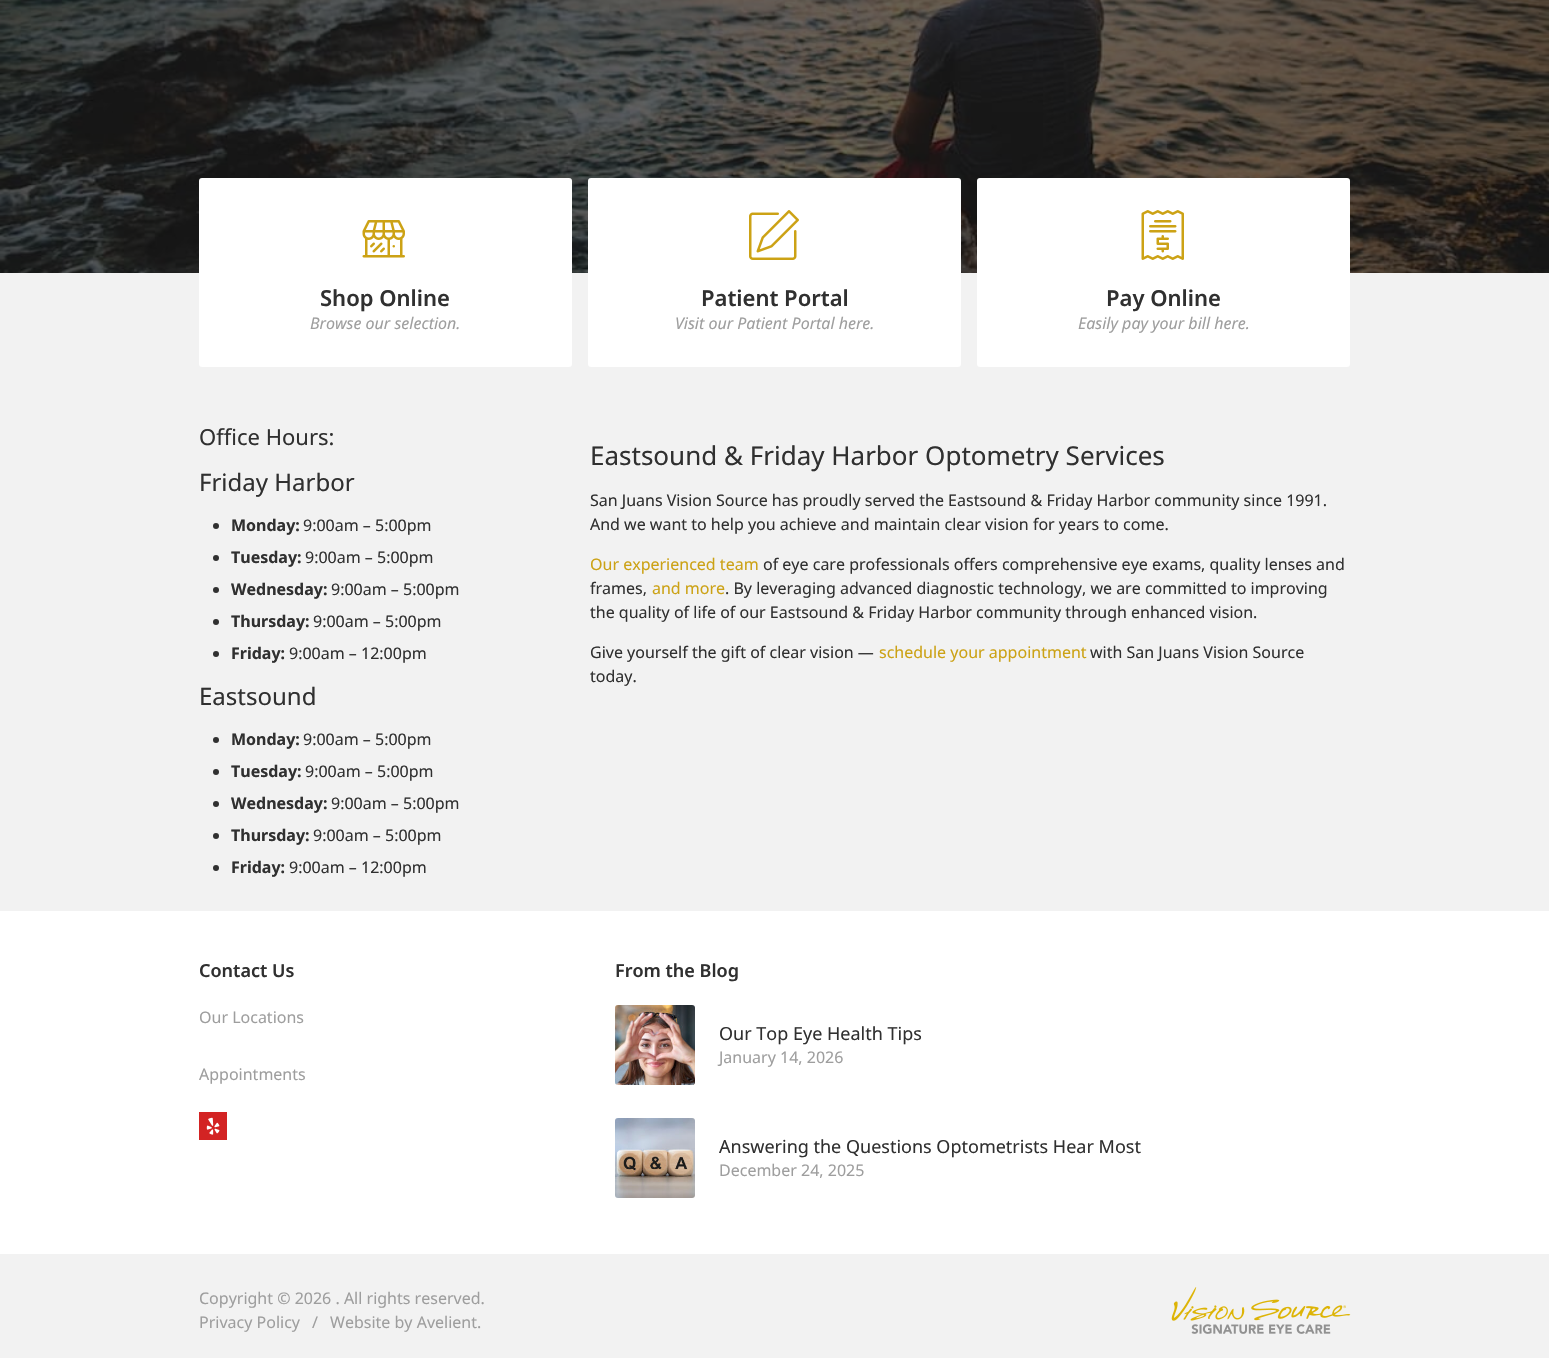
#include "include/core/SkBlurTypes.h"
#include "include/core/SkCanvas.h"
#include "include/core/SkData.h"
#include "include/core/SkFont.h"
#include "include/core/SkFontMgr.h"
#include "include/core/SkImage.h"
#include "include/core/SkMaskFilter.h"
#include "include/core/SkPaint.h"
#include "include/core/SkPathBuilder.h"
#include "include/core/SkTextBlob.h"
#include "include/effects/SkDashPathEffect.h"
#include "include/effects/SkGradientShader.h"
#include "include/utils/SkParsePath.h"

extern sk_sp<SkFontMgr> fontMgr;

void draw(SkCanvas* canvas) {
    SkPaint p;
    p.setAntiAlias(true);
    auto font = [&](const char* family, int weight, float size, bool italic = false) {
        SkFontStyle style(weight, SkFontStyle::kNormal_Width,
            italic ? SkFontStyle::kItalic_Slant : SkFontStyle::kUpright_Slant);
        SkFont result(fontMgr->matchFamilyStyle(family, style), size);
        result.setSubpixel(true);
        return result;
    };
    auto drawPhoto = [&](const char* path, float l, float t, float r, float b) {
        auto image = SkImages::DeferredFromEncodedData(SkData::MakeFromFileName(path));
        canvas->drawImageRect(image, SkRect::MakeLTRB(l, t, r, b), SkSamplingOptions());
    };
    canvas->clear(0xFFF2F2F2);
    drawPhoto("media/1.png", 0, 0, 1549, 273);
    p.setColor(0xFFFFFFFF);
    canvas->drawRoundRect(SkRect::MakeLTRB(199, 178, 572, 367), 3, 3, p);
    drawPhoto("media/2.png", 362, 220, 405, 258);
    auto font1 = font("Noto Sans", 600, 22);
    p.setColor(0xFF303030);
    canvas->drawString("Shop Online", 320, 306, font1, p);
    auto font2 = font("Noto Sans", 400, 16, true);
    p.setColor(0xFF9E9E9E);
    canvas->drawString("Browse our selection.", 310, 329, font2, p);
    p.setColor(0xFFFFFFFF);
    canvas->drawRoundRect(SkRect::MakeLTRB(588, 178, 961, 367), 3, 3, p);
    drawPhoto("media/3.png", 749, 210, 799, 260);
    p.setColor(0xFF303030);
    canvas->drawString("Patient Portal", 701, 306, font1, p);
    p.setColor(0xFF9E9E9E);
    canvas->drawString("Visit our Patient Portal here.", 675, 329, font2, p);
    p.setColor(0xFFFFFFFF);
    canvas->drawRoundRect(SkRect::MakeLTRB(977, 178, 1350, 367), 3, 3, p);
    drawPhoto("media/4.png", 1141, 210, 1184, 260);
    p.setColor(0xFF303030);
    canvas->drawString("Pay Online", 1106, 306, font1, p);
    p.setColor(0xFF9E9E9E);
    canvas->drawString("Easily pay your bill here.", 1078, 329, font2, p);
    auto font3 = font("Noto Sans", 400, 22);
    p.setColor(0xFF303030);
    canvas->drawString("Office Hours:", 199, 445, font3, p);
    auto font4 = font("Noto Sans", 400, 24);
    canvas->drawString("Friday Harbor", 199, 491, font4, p);
    canvas->drawCircle(216, 526, 3, p);
    auto font5 = font("Noto Sans", 700, 16);
    canvas->drawString("Monday:", 231, 531, font5, p);
    auto font6 = font("Noto Sans", 400, 16);
    canvas->drawString("9:00am – 5:00pm", 303, 531, font6, p);
    canvas->drawCircle(216, 558, 3, p);
    canvas->drawString("Tuesday:", 231, 563, font5, p);
    canvas->drawString("9:00am – 5:00pm", 305, 563, font6, p);
    canvas->drawCircle(216, 590, 3, p);
    canvas->drawString("Wednesday:", 231, 595, font5, p);
    canvas->drawString("9:00am – 5:00pm", 331, 595, font6, p);
    canvas->drawCircle(216, 622, 3, p);
    canvas->drawString("Thursday:", 231, 627, font5, p);
    canvas->drawString("9:00am – 5:00pm", 313, 627, font6, p);
    canvas->drawCircle(216, 654, 3, p);
    canvas->drawString("Friday:", 231, 659, font5, p);
    canvas->drawString("9:00am – 12:00pm", 289, 659, font6, p);
    canvas->drawString("Eastsound", 199, 705, font4, p);
    canvas->drawCircle(216, 740, 3, p);
    canvas->drawString("Monday:", 231, 745, font5, p);
    canvas->drawString("9:00am – 5:00pm", 303, 745, font6, p);
    canvas->drawCircle(216, 772, 3, p);
    canvas->drawString("Tuesday:", 231, 777, font5, p);
    canvas->drawString("9:00am – 5:00pm", 305, 777, font6, p);
    canvas->drawCircle(216, 804, 3, p);
    canvas->drawString("Wednesday:", 231, 809, font5, p);
    canvas->drawString("9:00am – 5:00pm", 331, 809, font6, p);
    canvas->drawCircle(216, 836, 3, p);
    canvas->drawString("Thursday:", 231, 841, font5, p);
    canvas->drawString("9:00am – 5:00pm", 313, 841, font6, p);
    canvas->drawCircle(216, 868, 3, p);
    canvas->drawString("Friday:", 231, 873, font5, p);
    canvas->drawString("9:00am – 12:00pm", 289, 873, font6, p);
    auto font7 = font("Noto Sans", 400, 26);
    canvas->drawString("Eastsound & Friday Harbor Optometry Services", 590, 465, font7, p);
    canvas->drawString("San Juans Vision Source has proudly served the Eastsound & Friday Harbor community since 1991.", 590, 506, font6, p);
    canvas->drawString("And we want to help you achieve and maintain clear vision for years to come.", 590, 530, font6, p);
    p.setColor(0xFFCCA215);
    canvas->drawString("Our experienced team", 590, 570, font6, p);
    p.setColor(0xFF303030);
    canvas->drawString("of eye care professionals offers comprehensive eye exams, quality lenses and", 763, 570, font6, p);
    canvas->drawString("frames,", 590, 594, font6, p);
    p.setColor(0xFFCCA215);
    canvas->drawString("and more", 652, 594, font6, p);
    p.setColor(0xFF303030);
    {
        const struct { const char* s; float x, y; } items[] = {
            {". By leveraging advanced diagnostic technology, we are committed to improving", 725, 594},
            {"the quality of life of our Eastsound & Friday Harbor community through enhanced vision.", 590, 618},
            {"Give yourself the gift of clear vision —", 590, 658},
        };
        for (auto [s, x, y] : items) {
            canvas->drawString(s, x, y, font6, p);
        }
    }
    p.setColor(0xFFCCA215);
    canvas->drawString("schedule your appointment", 879, 658, font6, p);
    p.setColor(0xFF303030);
    canvas->drawString("with San Juans Vision Source", 1090, 658, font6, p);
    canvas->drawString("today.", 590, 682, font6, p);
    p.setColor(0xFFFFFFFF);
    canvas->drawRect(SkRect::MakeLTRB(0, 911, 1549, 1254), p);
    auto font8 = font("Noto Sans", 600, 18);
    p.setColor(0xFF303030);
    canvas->drawString("Contact Us", 199, 977, font8, p);
    p.setColor(0xFF9E9E9E);
    canvas->drawString("Our Locations", 199, 1023, font6, p);
    canvas->drawString("Appointments", 199, 1080, font6, p);
    drawPhoto("media/5.png", 199, 1112, 227, 1140);
    p.setColor(0xFF303030);
    canvas->drawString("From the Blog", 615, 977, font8, p);
    drawPhoto("media/6.png", 615, 1005, 695, 1085);
    auto font9 = font("Noto Sans", 400, 18);
    canvas->drawString("Our Top Eye Health Tips", 719, 1040, font9, p);
    p.setColor(0xFF9E9E9E);
    canvas->drawString("January 14, 2026", 719, 1063, font6, p);
    drawPhoto("media/7.png", 615, 1118, 695, 1198);
    p.setColor(0xFF303030);
    canvas->drawString("Answering the Questions Optometrists Hear Most", 719, 1153, font9, p);
    p.setColor(0xFF9E9E9E);
    {
        const struct { const char* s; float x, y; } items[] = {
            {"December 24, 2025", 719, 1176},
            {"Copyright © 2026 . All rights reserved.", 199, 1304},
            {"Privacy Policy", 199, 1328},
            {"/", 312, 1328},
            {"Website by Avelient.", 330, 1328},
        };
        for (auto [s, x, y] : items) {
            canvas->drawString(s, x, y, font6, p);
        }
    }
    drawPhoto("media/8.png", 1171, 1287, 1351, 1334);
}
